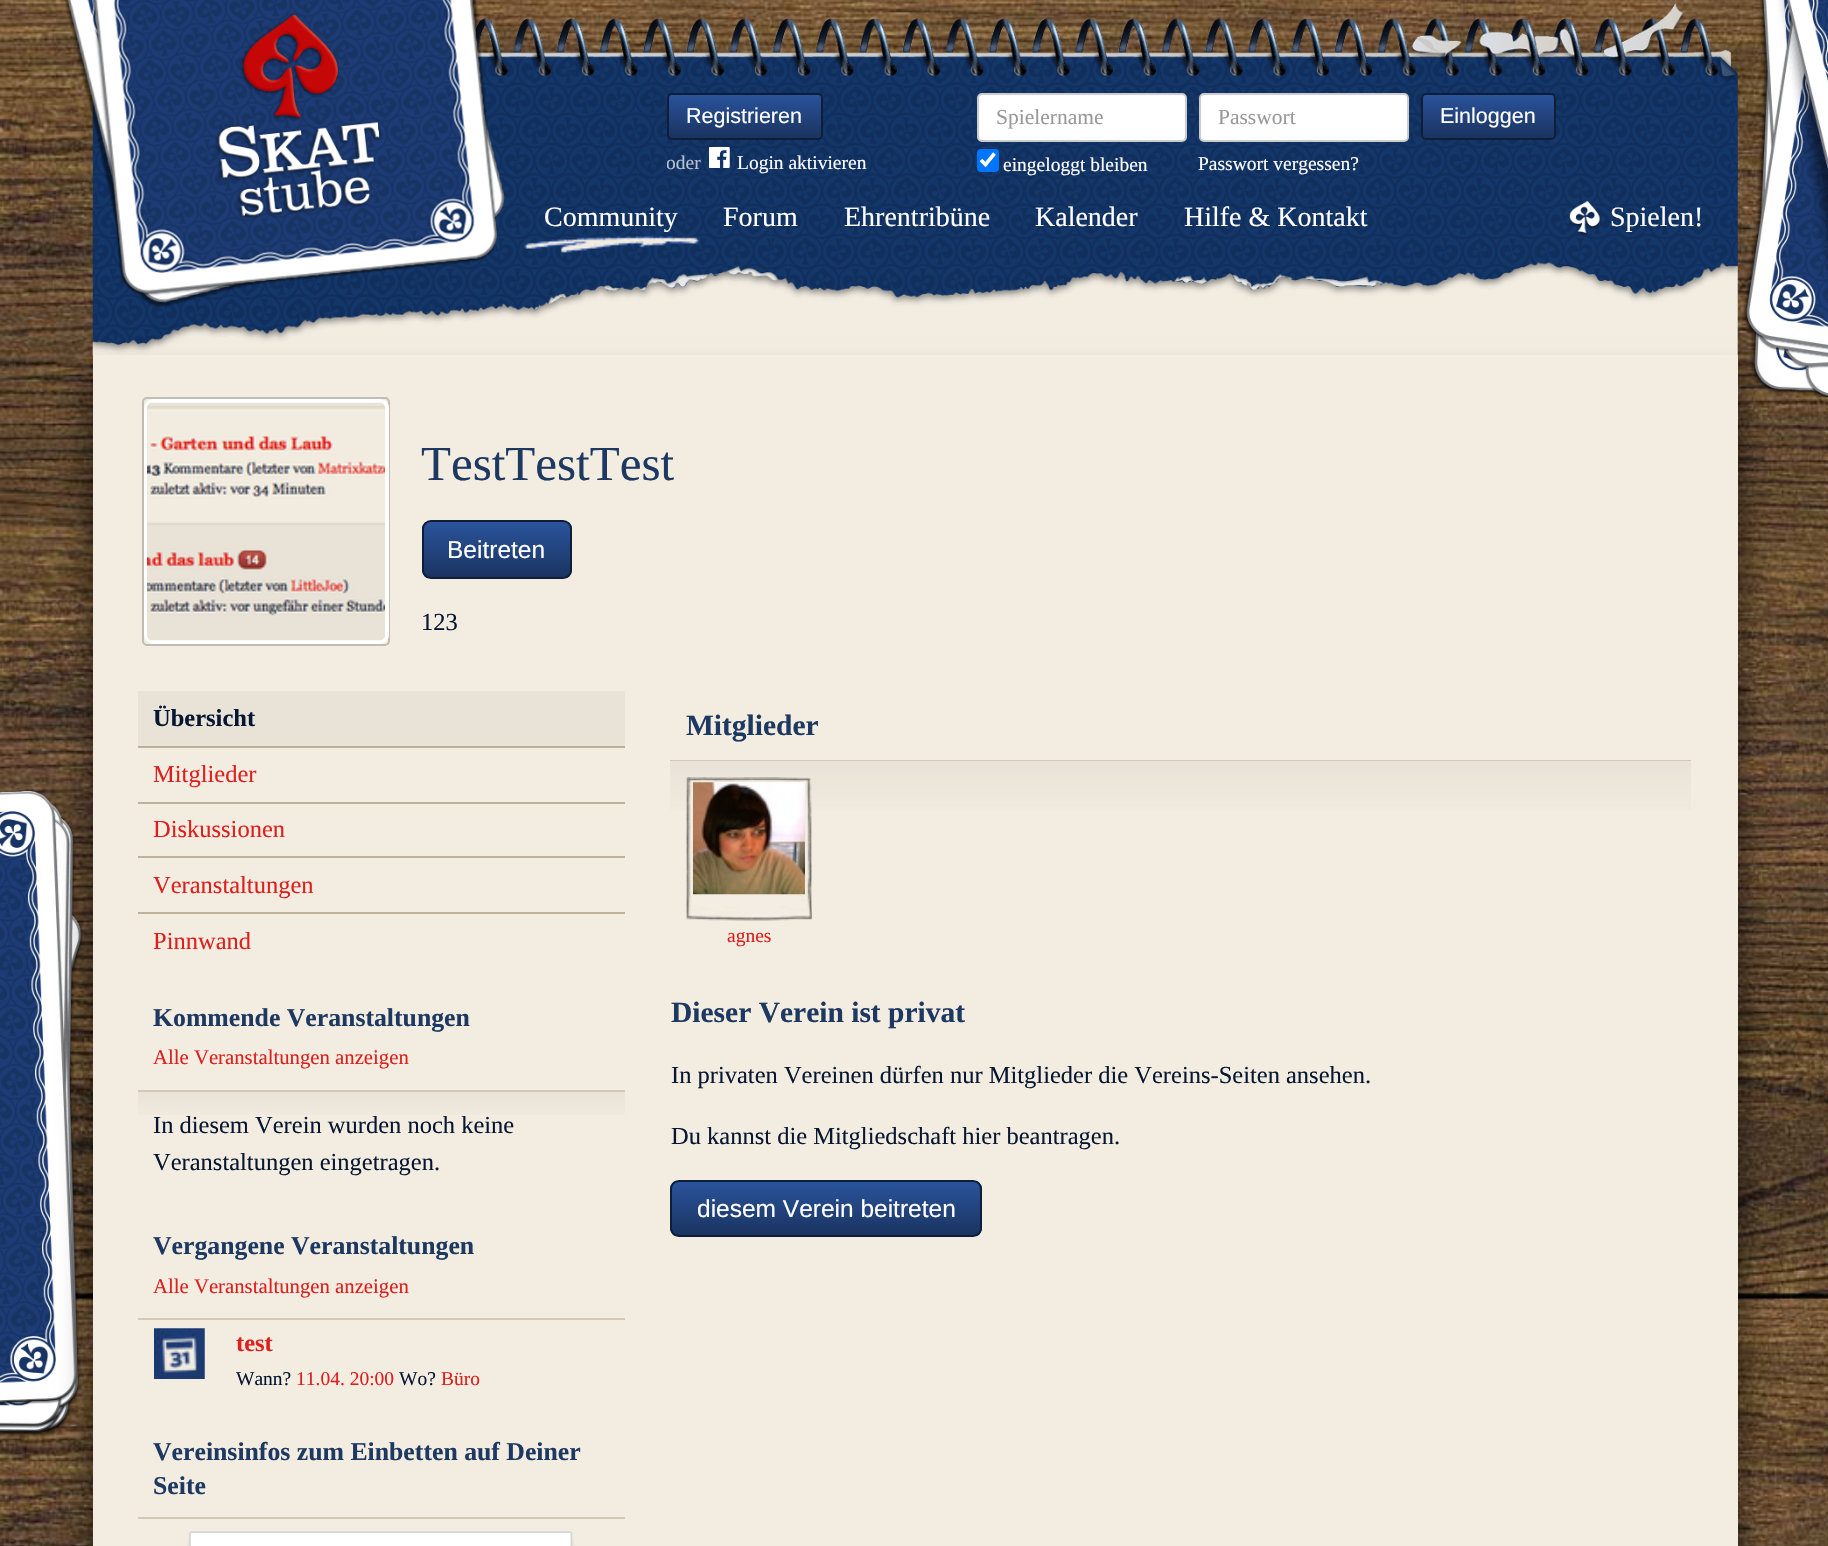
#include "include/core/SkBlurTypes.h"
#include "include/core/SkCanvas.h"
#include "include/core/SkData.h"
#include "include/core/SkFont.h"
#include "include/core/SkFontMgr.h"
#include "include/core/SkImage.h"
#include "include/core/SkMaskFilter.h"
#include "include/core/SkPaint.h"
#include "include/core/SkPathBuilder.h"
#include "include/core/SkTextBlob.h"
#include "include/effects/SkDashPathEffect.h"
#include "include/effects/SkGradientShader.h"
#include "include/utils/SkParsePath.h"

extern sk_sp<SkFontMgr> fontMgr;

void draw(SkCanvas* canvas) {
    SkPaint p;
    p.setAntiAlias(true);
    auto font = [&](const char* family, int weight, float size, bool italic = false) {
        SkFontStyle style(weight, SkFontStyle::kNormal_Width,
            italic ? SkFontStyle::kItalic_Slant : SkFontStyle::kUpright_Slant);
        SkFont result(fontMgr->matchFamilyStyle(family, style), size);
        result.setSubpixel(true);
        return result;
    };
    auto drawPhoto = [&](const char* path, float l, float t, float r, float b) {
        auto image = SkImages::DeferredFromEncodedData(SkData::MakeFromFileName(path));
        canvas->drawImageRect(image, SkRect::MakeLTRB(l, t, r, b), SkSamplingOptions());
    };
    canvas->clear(0xFFFFFFFF);
    drawPhoto("media/1.png", 0, 0, 1828, 1546);
    drawPhoto("media/2.png", 92, 2, 1738, 356);
    drawPhoto("media/3.png", 64, 0, 505, 308);
    canvas->save();
    canvas->clipPath(SkPathBuilder().moveTo(672, 93).lineTo(818, 93).cubicTo(821, 93, 823, 95, 823, 98).lineTo(823, 135).cubicTo(823, 138, 821, 140, 818, 140).lineTo(672, 140).cubicTo(669, 140, 667, 138, 667, 135).lineTo(667, 98).cubicTo(667, 95, 669, 93, 672, 93).close().detach(), true);
    {
        const SkColor colors[] = {0xFF2A549C, 0xFF1A3360};
        const float stops[] = {0, 1};
        const SkPoint ends[] = {{745, 94}, {745, 138}};
        p.setShader(SkGradientShader::MakeLinear(ends, colors, stops, 2, SkTileMode::kClamp));
        p.setAlpha(255);
    }
    canvas->drawRect(SkRect::MakeLTRB(667, 95, 823, 138), p);
    canvas->restore();
    p.setStyle(SkPaint::kStroke_Style);
    p.setStrokeWidth(2);
    p.setShader(nullptr);
    p.setColor(0xFF0F1E38);
    canvas->drawRoundRect(SkRect::MakeLTRB(668, 94, 822, 139), 4, 4, p);
    auto font1 = font("Liberation Sans", 400, 21.5f);
    p.setStyle(SkPaint::kFill_Style);
    p.setColor(0xFFFFFFFF);
    canvas->drawString("Registrieren", 686, 123, font1, p);
    canvas->save();
    canvas->clipRect(SkRect::MakeLTRB(667, 93, 866, 177));
    auto font2 = font("Liberation Serif", 400, 19.5f);
    p.setColor(0xFFB8C2D0);
    canvas->drawString("oder", 666, 169, font2, p);
    canvas->restore();
    drawPhoto("media/4.png", 709, 147, 730, 168);
    p.setColor(0xFFFFFFFF);
    canvas->drawString("Login aktivieren", 737, 169, font2, p);
    canvas->drawRoundRect(SkRect::MakeLTRB(978, 94, 1186, 141), 4, 4, p);
    p.setStyle(SkPaint::kStroke_Style);
    p.setColor(0xFFCCCCCC);
    canvas->drawRoundRect(SkRect::MakeLTRB(978, 94, 1186, 141), 4, 4, p);
    auto font3 = font("Liberation Serif", 400, 21.5f);
    p.setStyle(SkPaint::kFill_Style);
    p.setColor(0xFF999999);
    canvas->drawString("Spielername", 996, 124, font3, p);
    p.setColor(0xFF0075FF);
    canvas->drawRoundRect(SkRect::MakeLTRB(977, 149, 999, 172), 4, 4, p);
    p.setStyle(SkPaint::kStroke_Style);
    p.setStrokeWidth(3.6f);
    p.setColor(0xFFFFFFFF);
    canvas->drawPath(SkPathBuilder().moveTo(981, 160).lineTo(985.5f, 164.5f).lineTo(994.5f, 153.5f).detach(), p);
    p.setStyle(SkPaint::kFill_Style);
    canvas->drawString("eingeloggt bleiben", 1003, 171, font2, p);
    canvas->drawRoundRect(SkRect::MakeLTRB(1200, 94, 1408, 141), 4, 4, p);
    p.setStyle(SkPaint::kStroke_Style);
    p.setStrokeWidth(2);
    p.setColor(0xFFCCCCCC);
    canvas->drawRoundRect(SkRect::MakeLTRB(1200, 94, 1408, 141), 4, 4, p);
    p.setStyle(SkPaint::kFill_Style);
    p.setColor(0xFF999999);
    canvas->drawString("Passwort", 1218, 124, font3, p);
    canvas->save();
    canvas->clipPath(SkPathBuilder().moveTo(1426, 93).lineTo(1551, 93).cubicTo(1554, 93, 1556, 95, 1556, 98).lineTo(1556, 135).cubicTo(1556, 138, 1554, 140, 1551, 140).lineTo(1426, 140).cubicTo(1423, 140, 1421, 138, 1421, 135).lineTo(1421, 98).cubicTo(1421, 95, 1423, 93, 1426, 93).close().detach(), true);
    {
        const SkColor colors[] = {0xFF2A549C, 0xFF1A3360};
        const float stops[] = {0, 1};
        const SkPoint ends[] = {{1488, 94}, {1488, 138}};
        p.setShader(SkGradientShader::MakeLinear(ends, colors, stops, 2, SkTileMode::kClamp));
        p.setAlpha(255);
    }
    canvas->drawRect(SkRect::MakeLTRB(1421, 95, 1556, 138), p);
    canvas->restore();
    p.setStyle(SkPaint::kStroke_Style);
    p.setShader(nullptr);
    p.setColor(0xFF0F1E38);
    canvas->drawRoundRect(SkRect::MakeLTRB(1422, 94, 1555, 139), 4, 4, p);
    p.setStyle(SkPaint::kFill_Style);
    p.setColor(0xFFFFFFFF);
    canvas->drawString("Einloggen", 1440, 123, font1, p);
    canvas->drawString("Passwort vergessen?", 1198, 170, font2, p);
    drawPhoto("media/5.png", 524, 235, 699, 253);
    auto font4 = font("Liberation Serif", 400, 28);
    {
        const struct { const char* s; float x, y; } items[] = {
            {"Community", 544, 226},
            {"Forum", 723, 226},
            {"Ehrentribüne", 844, 226},
            {"Kalender", 1035, 226},
            {"Hilfe & Kontakt", 1184, 226},
        };
        for (auto [s, x, y] : items) {
            canvas->drawString(s, x, y, font4, p);
        }
    }
    drawPhoto("media/6.png", 1568, 201, 1601, 236);
    canvas->drawString("Spielen!", 1610, 226, font4, p);
    p.setColor(0x80000000);
    p.setMaskFilter(SkMaskFilter::MakeBlur(kNormal_SkBlurStyle, 13));
    canvas->drawRect(SkRect::MakeLTRB(88, 376, 1743, 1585), p);
    p.setMaskFilter(nullptr);
    p.setColor(0xFFF2ECE1);
    canvas->drawRect(SkRect::MakeLTRB(93, 355, 1738, 1546), p);
    p.setStyle(SkPaint::kStroke_Style);
    p.setColor(0xFFC2BDB4);
    canvas->drawRoundRect(SkRect::MakeLTRB(143, 398, 389, 645), 4, 4, p);
    p.setStrokeWidth(4);
    p.setColor(0xFFFFFFFF);
    canvas->drawRoundRect(SkRect::MakeLTRB(146, 401, 387, 642), 7, 7, p);
    drawPhoto("media/7.png", 147, 402, 385, 641);
    auto font5 = font("Liberation Serif", 400, 49);
    p.setStyle(SkPaint::kFill_Style);
    p.setColor(0xFF1D3961);
    canvas->drawString("TestTestTest", 421, 480, font5, p);
    canvas->save();
    canvas->clipPath(SkPathBuilder().moveTo(431, 520).lineTo(563, 520).cubicTo(568, 520, 572, 524, 572, 529).lineTo(572, 570).cubicTo(572, 575, 568, 579, 563, 579).lineTo(431, 579).cubicTo(426, 579, 422, 575, 422, 570).lineTo(422, 529).cubicTo(422, 524, 426, 520, 431, 520).close().detach(), true);
    {
        const SkColor colors[] = {0xFF2A549C, 0xFF1A3360};
        const float stops[] = {0, 1};
        const SkPoint ends[] = {{497, 522}, {497, 578}};
        p.setShader(SkGradientShader::MakeLinear(ends, colors, stops, 2, SkTileMode::kClamp));
        p.setAlpha(255);
    }
    canvas->drawRect(SkRect::MakeLTRB(422, 522, 572, 578), p);
    canvas->restore();
    p.setStyle(SkPaint::kStroke_Style);
    p.setStrokeWidth(2);
    p.setShader(nullptr);
    p.setColor(0xFF0F1E38);
    canvas->drawRoundRect(SkRect::MakeLTRB(423, 521, 571, 578), 8, 8, p);
    auto font6 = font("Liberation Sans", 400, 24.5f);
    p.setStyle(SkPaint::kFill_Style);
    p.setColor(0xFFFFFFFF);
    canvas->drawString("Beitreten", 447, 558, font6, p);
    auto font7 = font("Liberation Serif", 400, 24.5f);
    p.setColor(0xFF081731);
    canvas->drawString("123", 421, 630, font7, p);
    p.setColor(0xFFE8E2D7);
    canvas->drawRect(SkRect::MakeLTRB(138, 691, 625, 747), p);
    p.setColor(0x808C7653);
    canvas->drawRect(SkRect::MakeLTRB(138, 746, 625, 748), p);
    auto font8 = font("Liberation Serif", 700, 24.5f);
    p.setColor(0xFF081731);
    canvas->drawString("Übersicht", 153, 726, font8, p);
    p.setColor(0xFFBFB19A);
    canvas->drawRect(SkRect::MakeLTRB(138, 802, 625, 804), p);
    p.setColor(0xFFDE1F1C);
    canvas->drawString("Mitglieder", 153, 782, font7, p);
    p.setColor(0xFFBFB19A);
    canvas->drawRect(SkRect::MakeLTRB(138, 856, 625, 858), p);
    p.setColor(0xFFDE1F1C);
    canvas->drawString("Diskussionen", 153, 837, font7, p);
    p.setColor(0xFFBFB19A);
    canvas->drawRect(SkRect::MakeLTRB(138, 912, 625, 914), p);
    p.setColor(0xFFDE1F1C);
    canvas->drawString("Veranstaltungen", 153, 893, font7, p);
    canvas->drawString("Pinnwand", 153, 949, font7, p);
    p.setColor(0xFFD3C9B6);
    canvas->drawRect(SkRect::MakeLTRB(138, 1090, 625, 1092), p);
    auto font9 = font("Liberation Serif", 700, 25.75f);
    p.setColor(0xFF1D3961);
    canvas->drawString("Kommende Veranstaltungen", 153, 1026, font9, p);
    auto font10 = font("Liberation Serif", 400, 20.75f);
    p.setColor(0xFFDE1F1C);
    canvas->drawString("Alle Veranstaltungen anzeigen", 153, 1064, font10, p);
    {
        const SkColor colors[] = {0xFFE8E2D7, 0xFFF2ECE1};
        const float stops[] = {0, 0.3f};
        const SkPoint ends[] = {{382, 1092}, {382, 1195}};
        p.setShader(SkGradientShader::MakeLinear(ends, colors, stops, 2, SkTileMode::kClamp));
        p.setAlpha(255);
    }
    canvas->drawRect(SkRect::MakeLTRB(138, 1092, 625, 1115), p);
    p.setShader(nullptr);
    p.setColor(0xFF081731);
    canvas->drawString("In diesem Verein wurden noch keine", 153, 1133, font7, p);
    canvas->drawString("Veranstaltungen eingetragen.", 153, 1170, font7, p);
    p.setColor(0xFFD3C9B6);
    canvas->drawRect(SkRect::MakeLTRB(138, 1318, 625, 1320), p);
    p.setColor(0xFF1D3961);
    canvas->drawString("Vergangene Veranstaltungen", 153, 1254, font9, p);
    p.setColor(0xFFDE1F1C);
    canvas->drawString("Alle Veranstaltungen anzeigen", 153, 1293, font10, p);
    drawPhoto("media/8.png", 154, 1328, 205, 1379);
    canvas->drawString("test", 236, 1351, font8, p);
    p.setColor(0xFF081731);
    canvas->drawString("Wann?", 236, 1385, font2, p);
    p.setColor(0xFFDE1F1C);
    canvas->drawString("11.04. 20:00", 296, 1385, font2, p);
    p.setColor(0xFF081731);
    canvas->drawString("Wo?", 399, 1385, font2, p);
    p.setColor(0xFFDE1F1C);
    canvas->drawString("Büro", 441, 1385, font2, p);
    p.setColor(0xFFD3C9B6);
    canvas->drawRect(SkRect::MakeLTRB(138, 1517, 625, 1519), p);
    p.setColor(0xFF1D3961);
    canvas->drawString("Vereinsinfos zum Einbetten auf Deiner", 153, 1460, font9, p);
    canvas->drawString("Seite", 153, 1494, font9, p);
    drawPhoto("media/9.png", 187, 1531, 574, 1546);
    p.setColor(0xFFD3C9B6);
    canvas->drawRect(SkRect::MakeLTRB(670, 760, 1691, 762), p);
    auto font11 = font("Liberation Serif", 700, 29.5f);
    p.setColor(0xFF1D3961);
    canvas->drawString("Mitglieder", 686, 735, font11, p);
    {
        const SkColor colors[] = {0xFFE8E2D7, 0x00E8E2D7};
        const float stops[] = {0, 0.3f};
        const SkPoint ends[] = {{1180, 761}, {1180, 977}};
        p.setShader(SkGradientShader::MakeLinear(ends, colors, stops, 2, SkTileMode::kClamp));
        p.setAlpha(255);
    }
    canvas->drawRect(SkRect::MakeLTRB(670, 761, 1691, 810), p);
    drawPhoto("media/10.png", 686, 777, 812, 921);
    drawPhoto("media/11.png", 693, 782, 805, 895);
    p.setShader(nullptr);
    p.setColor(0xFFDE1F1C);
    canvas->drawString("agnes", 727, 942, font2, p);
    p.setColor(0xFF1D3961);
    canvas->drawString("Dieser Verein ist privat", 671, 1022, font11, p);
    p.setColor(0xFF081731);
    canvas->drawString("In privaten Vereinen dürfen nur Mitglieder die Vereins-Seiten ansehen.", 671, 1083, font7, p);
    canvas->drawString("Du kannst die Mitgliedschaft hier beantragen.", 671, 1144, font7, p);
    canvas->save();
    canvas->clipPath(SkPathBuilder().moveTo(679, 1180).lineTo(973, 1180).cubicTo(978, 1180, 982, 1184, 982, 1189).lineTo(982, 1228).cubicTo(982, 1233, 978, 1237, 973, 1237).lineTo(679, 1237).cubicTo(674, 1237, 670, 1233, 670, 1228).lineTo(670, 1189).cubicTo(670, 1184, 674, 1180, 679, 1180).close().detach(), true);
    {
        const SkColor colors[] = {0xFF2A549C, 0xFF1A3360};
        const float stops[] = {0, 1};
        const SkPoint ends[] = {{826, 1181}, {826, 1236}};
        p.setShader(SkGradientShader::MakeLinear(ends, colors, stops, 2, SkTileMode::kClamp));
        p.setAlpha(255);
    }
    canvas->drawRect(SkRect::MakeLTRB(670, 1181, 982, 1236), p);
    canvas->restore();
    p.setStyle(SkPaint::kStroke_Style);
    p.setShader(nullptr);
    p.setColor(0xFF0F1E38);
    canvas->drawRoundRect(SkRect::MakeLTRB(671, 1181, 981, 1236), 8, 8, p);
    p.setStyle(SkPaint::kFill_Style);
    p.setColor(0xFFFFFFFF);
    canvas->drawString("diesem Verein beitreten", 697, 1217, font6, p);
}
